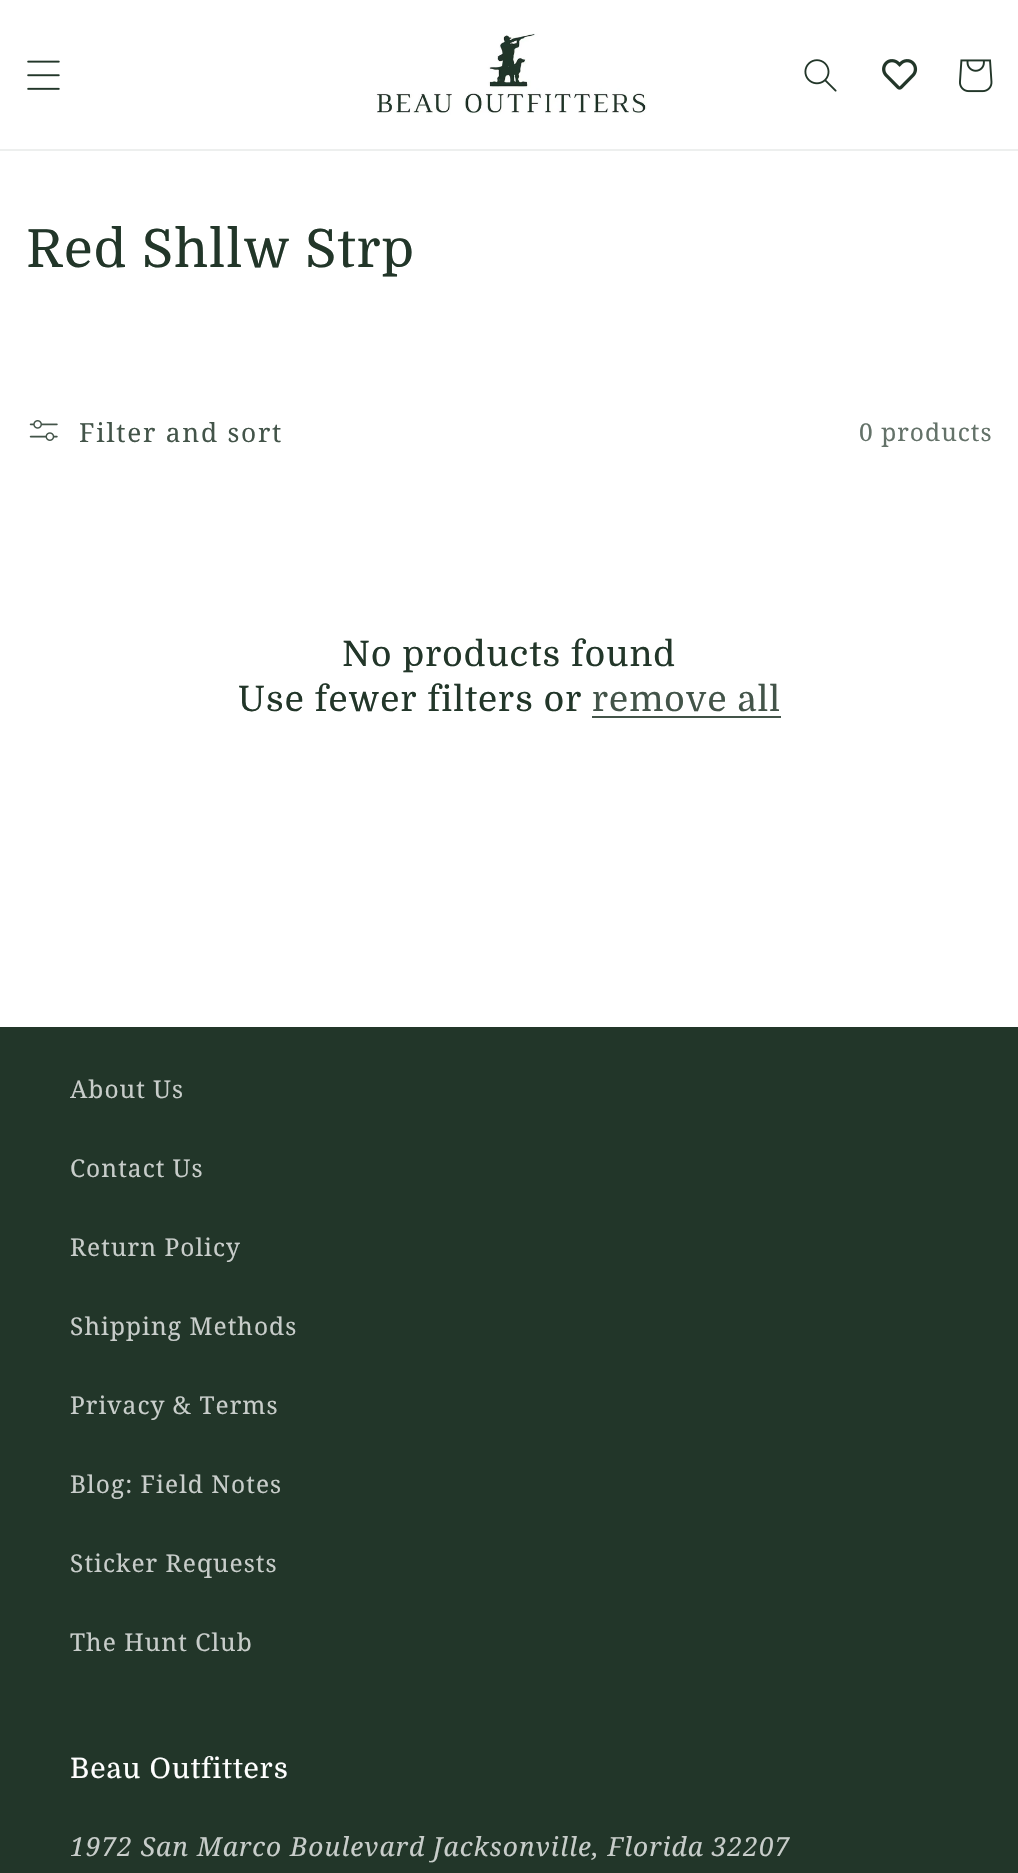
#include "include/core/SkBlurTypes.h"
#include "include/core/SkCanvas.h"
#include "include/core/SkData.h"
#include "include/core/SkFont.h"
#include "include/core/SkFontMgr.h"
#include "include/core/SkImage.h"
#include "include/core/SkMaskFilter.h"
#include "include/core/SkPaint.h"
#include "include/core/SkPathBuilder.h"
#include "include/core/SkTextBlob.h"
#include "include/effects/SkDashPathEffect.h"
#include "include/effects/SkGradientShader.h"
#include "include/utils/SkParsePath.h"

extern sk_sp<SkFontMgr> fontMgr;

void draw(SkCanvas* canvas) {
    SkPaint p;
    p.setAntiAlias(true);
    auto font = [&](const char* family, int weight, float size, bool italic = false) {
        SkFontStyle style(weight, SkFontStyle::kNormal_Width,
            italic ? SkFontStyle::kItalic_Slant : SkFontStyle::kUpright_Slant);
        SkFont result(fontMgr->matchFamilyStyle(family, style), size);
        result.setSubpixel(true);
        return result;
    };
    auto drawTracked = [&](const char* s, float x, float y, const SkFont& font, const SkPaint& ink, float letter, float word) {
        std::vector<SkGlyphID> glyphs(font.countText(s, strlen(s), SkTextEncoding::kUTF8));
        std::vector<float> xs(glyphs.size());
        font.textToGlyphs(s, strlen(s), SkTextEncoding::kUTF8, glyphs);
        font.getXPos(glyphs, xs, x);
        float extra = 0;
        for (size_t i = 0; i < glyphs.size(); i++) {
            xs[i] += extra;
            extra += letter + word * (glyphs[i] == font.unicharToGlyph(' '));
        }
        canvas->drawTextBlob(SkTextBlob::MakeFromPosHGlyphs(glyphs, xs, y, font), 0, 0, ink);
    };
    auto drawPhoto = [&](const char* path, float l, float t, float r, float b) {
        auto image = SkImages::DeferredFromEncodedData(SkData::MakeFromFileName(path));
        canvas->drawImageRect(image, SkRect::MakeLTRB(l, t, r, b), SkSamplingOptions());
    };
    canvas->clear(0xFFFFFFFF);
    p.setColor(0xFFEDEFEE);
    canvas->drawRect(SkRect::MakeLTRB(0, 149, 1018, 151), p);
    drawPhoto("media/1.png", 27, 60, 60, 90);
    drawPhoto("media/2.png", 376, 33, 647, 115);
    drawPhoto("media/3.png", 804, 59, 837, 92);
    drawPhoto("media/4.png", 882, 59, 918, 90);
    drawPhoto("media/5.png", 959, 59, 993, 93);
    auto font1 = font("Domine", 400, 52.5f);
    p.setColor(0xFF223629);
    drawTracked("Red Shllw Strp", 26, 267, font1, p, 1.05f, 0);
    drawPhoto("media/6.png", 29, 420, 58, 441);
    auto font2 = font("Noto Serif", 400, 26.25f);
    p.setColor(0xFF435449);
    drawTracked("Filter and sort", 79, 442, font2, p, 1.75f, 0);
    auto font3 = font("Noto Serif", 400, 24.5f);
    p.setColor(0xFF647269);
    drawTracked("0 products", 859, 441, font3, p, 1.05f, 0);
    auto font4 = font("Domine", 400, 35);
    p.setColor(0xFF223629);
    drawTracked("No products found", 342, 666, font4, p, 1.05f, 0);
    drawTracked("Use fewer filters or", 238, 711, font4, p, 1.05f, 0);
    p.setColor(0xFF435449);
    drawTracked("remove all", 592, 711, font4, p, 1.05f, 0);
    canvas->drawRect(SkRect::MakeLTRB(592, 716, 781, 718), p);
    p.setColor(0xFF223629);
    canvas->drawRect(SkRect::MakeLTRB(0, 1027, 1018, 1873), p);
    p.setColor(0xFFC8CDCA);
    {
        const struct { const char* s; float x, y; } items[] = {
            {"About Us", 70, 1098},
            {"Contact Us", 70, 1177},
            {"Return Policy", 70, 1256},
            {"Shipping Methods", 70, 1335},
            {"Privacy & Terms", 70, 1414},
            {"Blog: Field Notes", 70, 1493},
            {"Sticker Requests", 70, 1572},
            {"The Hunt Club", 70, 1651},
        };
        for (auto [s, x, y] : items) {
            drawTracked(s, x, y, font3, p, 1.05f, 0);
        }
    }
    auto font5 = font("Domine", 400, 28);
    p.setColor(0xFFFFFFFF);
    drawTracked("Beau Outfitters", 70, 1778, font5, p, 1.05f, 0);
    auto font6 = font("Noto Serif", 400, 26.25f, true);
    p.setColor(0xFFC8CDCA);
    drawTracked("1972 San Marco Boulevard Jacksonville, Florida 32207", 70, 1856, font6, p, 1.05f, 0);
}
